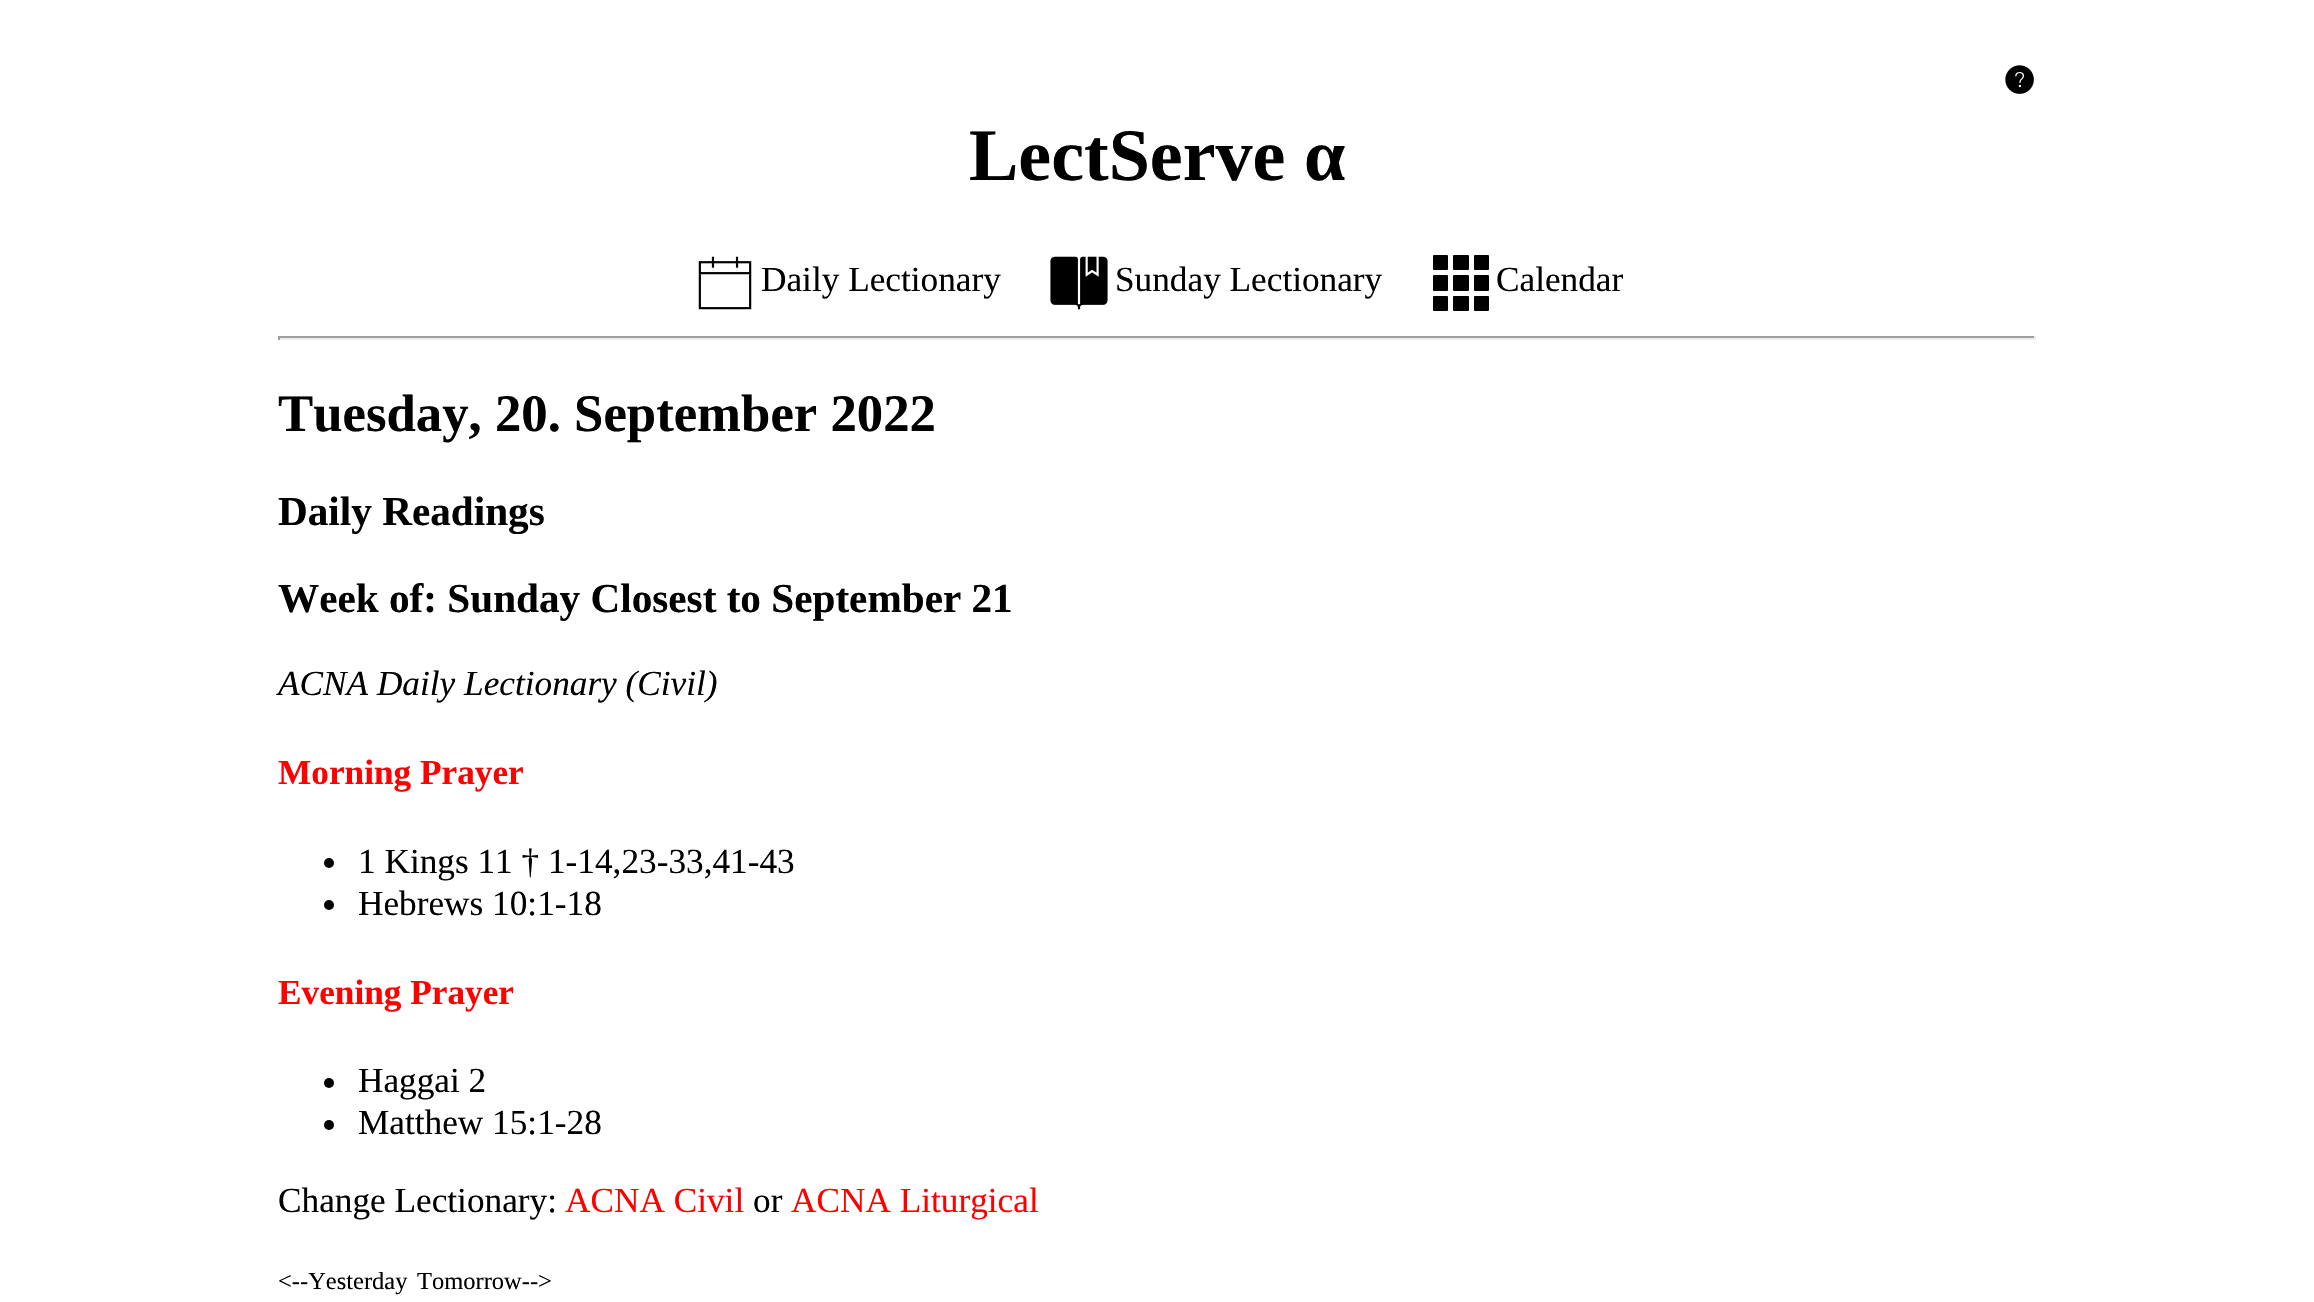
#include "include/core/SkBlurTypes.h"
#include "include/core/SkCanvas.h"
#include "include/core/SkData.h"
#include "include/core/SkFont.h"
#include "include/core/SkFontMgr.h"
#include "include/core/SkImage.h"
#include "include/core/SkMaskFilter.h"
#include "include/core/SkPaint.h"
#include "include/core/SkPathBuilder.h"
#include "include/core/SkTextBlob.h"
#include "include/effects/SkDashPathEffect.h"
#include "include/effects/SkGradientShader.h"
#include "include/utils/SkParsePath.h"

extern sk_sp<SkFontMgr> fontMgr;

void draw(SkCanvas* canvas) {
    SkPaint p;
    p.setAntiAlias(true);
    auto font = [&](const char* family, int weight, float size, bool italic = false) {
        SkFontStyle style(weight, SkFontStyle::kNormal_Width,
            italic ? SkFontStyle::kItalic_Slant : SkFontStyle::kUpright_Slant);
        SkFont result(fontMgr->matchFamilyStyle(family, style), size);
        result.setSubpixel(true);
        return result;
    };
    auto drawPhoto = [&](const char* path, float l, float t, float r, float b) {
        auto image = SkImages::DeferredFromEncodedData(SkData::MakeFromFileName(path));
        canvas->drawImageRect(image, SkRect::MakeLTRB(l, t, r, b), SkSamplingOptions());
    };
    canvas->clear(0xFFFFFFFF);
    drawPhoto("media/1.png", 2005, 65, 2034, 94);
    auto font1 = font("Liberation Serif", 700, 74);
    p.setColor(0xFF000000);
    canvas->drawString("LectServe α", 969, 180, font1, p);
    drawPhoto("media/2.png", 698, 256, 752, 310);
    auto font2 = font("Liberation Serif", 400, 35.25f);
    canvas->drawString("Daily Lectionary", 761, 291, font2, p);
    drawPhoto("media/3.png", 1050, 256, 1108, 310);
    canvas->drawString("Sunday Lectionary", 1115, 291, font2, p);
    canvas->drawString("Calendar", 1496, 291, font2, p);
    canvas->drawRoundRect(SkRect::MakeLTRB(1433, 255, 1448, 270), 1, 1, p);
    canvas->drawRoundRect(SkRect::MakeLTRB(1453, 255, 1469, 270), 1, 1, p);
    canvas->drawRoundRect(SkRect::MakeLTRB(1474, 255, 1489, 270), 1, 1, p);
    canvas->drawRoundRect(SkRect::MakeLTRB(1433, 275, 1448, 291), 1, 1, p);
    canvas->drawRoundRect(SkRect::MakeLTRB(1453, 275, 1469, 291), 1, 1, p);
    canvas->drawRoundRect(SkRect::MakeLTRB(1474, 275, 1489, 291), 1, 1, p);
    canvas->drawRoundRect(SkRect::MakeLTRB(1433, 296, 1448, 311), 1, 1, p);
    canvas->drawRoundRect(SkRect::MakeLTRB(1453, 296, 1469, 311), 1, 1, p);
    canvas->drawRoundRect(SkRect::MakeLTRB(1474, 296, 1489, 311), 1, 1, p);
    {
        const struct { float l, t, r, b; SkColor color; } items[] = {
            {278, 336, 2036, 338, 0xFF9F9F9F},
            {2034, 336, 2036, 340, 0xFFEEEEEE},
            {278, 338, 2036, 340, 0xFFEEEEEE},
            {278, 336, 280, 340, 0xFF9F9F9F},
        };
        for (auto [l, t, r, b, color] : items) {
            p.setColor(color);
            canvas->drawRect(SkRect::MakeLTRB(l, t, r, b), p);
        }
    }
    auto font3 = font("Liberation Serif", 700, 52.75f);
    p.setColor(0xFF000000);
    canvas->drawString("Tuesday, 20. September 2022", 278, 431, font3, p);
    auto font4 = font("Liberation Serif", 700, 41.2f);
    canvas->drawString("Daily Readings", 278, 525, font4, p);
    canvas->drawString("Week of: Sunday Closest to September 21", 278, 612, font4, p);
    auto font5 = font("Liberation Serif", 400, 35.25f, true);
    canvas->drawString("ACNA Daily Lectionary (Civil)", 278, 695, font5, p);
    auto font6 = font("Liberation Serif", 700, 35.25f);
    p.setColor(0xFFFF0000);
    canvas->drawString("Morning Prayer", 278, 784, font6, p);
    p.setColor(0xFF000000);
    canvas->drawCircle(329, 863, 5, p);
    canvas->drawString("1 Kings 11 † 1-14,23-33,41-43", 358, 873, font2, p);
    canvas->drawCircle(329, 905, 5, p);
    canvas->drawString("Hebrews 10:1-18", 358, 915, font2, p);
    p.setColor(0xFFFF0000);
    canvas->drawString("Evening Prayer", 278, 1004, font6, p);
    p.setColor(0xFF000000);
    canvas->drawCircle(329, 1083, 5, p);
    canvas->drawString("Haggai 2", 358, 1092, font2, p);
    canvas->drawCircle(329, 1125, 5, p);
    canvas->drawString("Matthew 15:1-28", 358, 1134, font2, p);
    canvas->drawString("Change Lectionary:", 278, 1212, font2, p);
    p.setColor(0xFFFF0000);
    canvas->drawString("ACNA Civil", 565, 1212, font2, p);
    p.setColor(0xFF000000);
    canvas->drawString("or", 753, 1212, font2, p);
    p.setColor(0xFFFF0000);
    canvas->drawString("ACNA Liturgical", 791, 1212, font2, p);
    auto font7 = font("Liberation Serif", 400, 24.5f);
    p.setColor(0xFF000000);
    canvas->drawString("<--Yesterday", 278, 1289, font7, p);
    canvas->drawString("Tomorrow-->", 417, 1289, font7, p);
}
